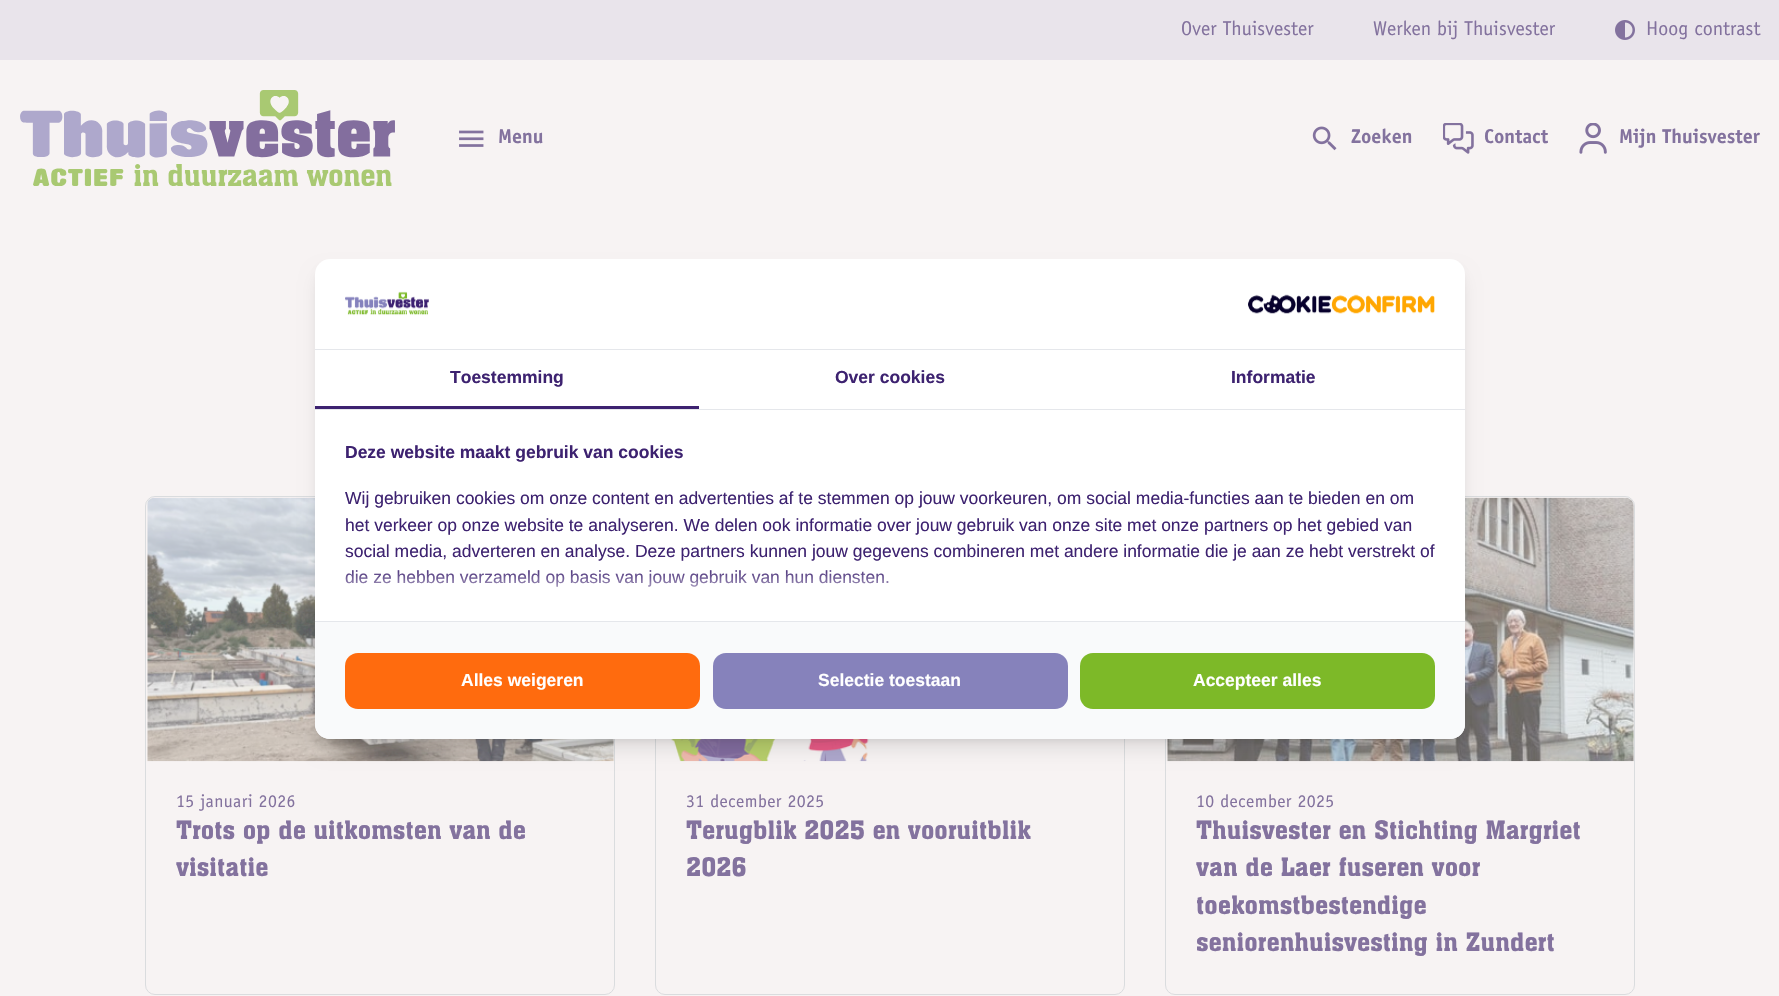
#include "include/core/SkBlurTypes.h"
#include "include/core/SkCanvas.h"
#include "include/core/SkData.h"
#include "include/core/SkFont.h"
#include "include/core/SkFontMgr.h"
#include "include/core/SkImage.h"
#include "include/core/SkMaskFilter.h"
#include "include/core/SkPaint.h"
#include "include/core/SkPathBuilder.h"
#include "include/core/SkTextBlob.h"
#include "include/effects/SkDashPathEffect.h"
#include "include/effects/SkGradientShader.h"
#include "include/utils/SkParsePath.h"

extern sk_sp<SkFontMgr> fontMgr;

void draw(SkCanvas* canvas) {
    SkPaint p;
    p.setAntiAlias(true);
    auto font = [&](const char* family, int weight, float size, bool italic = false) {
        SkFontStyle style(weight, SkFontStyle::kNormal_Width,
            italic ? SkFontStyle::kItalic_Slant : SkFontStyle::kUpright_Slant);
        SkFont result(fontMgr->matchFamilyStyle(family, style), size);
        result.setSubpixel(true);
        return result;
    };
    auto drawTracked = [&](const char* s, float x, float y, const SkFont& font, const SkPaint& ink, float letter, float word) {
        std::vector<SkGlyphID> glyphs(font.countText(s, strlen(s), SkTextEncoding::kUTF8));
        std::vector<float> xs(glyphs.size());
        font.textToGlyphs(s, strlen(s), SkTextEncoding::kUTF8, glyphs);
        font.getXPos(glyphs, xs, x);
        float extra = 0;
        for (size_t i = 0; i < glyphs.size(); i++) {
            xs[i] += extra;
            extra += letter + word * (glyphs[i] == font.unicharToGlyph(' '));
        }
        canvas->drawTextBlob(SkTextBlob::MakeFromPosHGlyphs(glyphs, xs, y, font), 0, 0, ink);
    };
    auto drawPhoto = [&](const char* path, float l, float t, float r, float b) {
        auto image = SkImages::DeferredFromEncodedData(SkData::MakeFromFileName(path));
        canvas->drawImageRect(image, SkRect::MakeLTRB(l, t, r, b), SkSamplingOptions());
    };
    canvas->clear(0xFFF7F3F3);
    p.setColor(0xFFE9E4EB);
    canvas->drawRect(SkRect::MakeLTRB(0, 0, 1779, 60), p);
    auto font1 = font("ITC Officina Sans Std", 400, 20);
    p.setColor(0xFF83729E);
    canvas->drawString("Over Thuisvester", 1181, 35, font1, p);
    canvas->drawString("Werken bij Thuisvester", 1373, 35, font1, p);
    drawPhoto("media/1.png", 1615, 20, 1635, 40);
    canvas->drawString("Hoog contrast", 1646, 35, font1, p);
    drawPhoto("media/2.png", 20, 90, 395, 186);
    drawPhoto("media/3.png", 459, 130, 484, 147);
    auto font2 = font("ITC Officina Sans Std", 700, 20);
    canvas->drawString("Menu", 498, 143, font2, p);
    drawPhoto("media/4.png", 1312, 126, 1337, 151);
    canvas->drawString("Zoeken", 1351, 143, font2, p);
    drawPhoto("media/5.png", 1443, 123, 1474, 154);
    canvas->drawString("Contact", 1484, 143, font2, p);
    drawPhoto("media/6.png", 1579, 123, 1607, 154);
    canvas->drawString("Mijn Thuisvester", 1619, 143, font2, p);
    p.setStyle(SkPaint::kStroke_Style);
    p.setStrokeWidth(1);
    p.setColor(0xFFDADCDE);
    canvas->drawRoundRect(SkRect::MakeLTRB(145.5f, 496.5f, 614.5f, 994.5f), 9.5f, 9.5f, p);
    drawPhoto("media/7.png", 147, 497, 614, 762);
    auto font3 = font("ITC Officina Sans Std", 400, 17.75f);
    p.setStyle(SkPaint::kFill_Style);
    p.setColor(0xFF83729E);
    drawTracked("15 januari 2026", 176, 807, font3, p, 0.4f, 0);
    auto font4 = font("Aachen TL", 400, 25);
    canvas->drawString("Trots op de uitkomsten van de", 176, 839, font4, p);
    canvas->drawString("visitatie", 176, 876, font4, p);
    p.setStyle(SkPaint::kStroke_Style);
    p.setColor(0xFFDADCDE);
    canvas->drawRoundRect(SkRect::MakeLTRB(655.5f, 496.5f, 1124.5f, 994.5f), 9.5f, 9.5f, p);
    drawPhoto("media/8.png", 657, 739, 1124, 762);
    p.setStyle(SkPaint::kFill_Style);
    p.setColor(0xFF83729E);
    drawTracked("31 december 2025", 686, 807, font3, p, 0.4f, 0);
    canvas->drawString("Terugblik 2025 en vooruitblik", 686, 839, font4, p);
    canvas->drawString("2026", 686, 876, font4, p);
    p.setStyle(SkPaint::kStroke_Style);
    p.setColor(0xFFDADCDE);
    canvas->drawRoundRect(SkRect::MakeLTRB(1165.5f, 496.5f, 1634.5f, 994.5f), 9.5f, 9.5f, p);
    drawPhoto("media/9.png", 1167, 497, 1634, 762);
    p.setStyle(SkPaint::kFill_Style);
    p.setColor(0xFF83729E);
    drawTracked("10 december 2025", 1196, 807, font3, p, 0.4f, 0);
    {
        const struct { const char* s; float x, y; } items[] = {
            {"Thuisvester en Stichting Margriet", 1196, 839},
            {"van de Laer fuseren voor", 1196, 876},
            {"toekomstbestendige", 1196, 914},
            {"seniorenhuisvesting in Zundert", 1196, 951},
        };
        for (auto [s, x, y] : items) {
            canvas->drawString(s, x, y, font4, p);
        }
    }
    p.setColor(0x1A000000);
    p.setMaskFilter(SkMaskFilter::MakeBlur(kNormal_SkBlurStyle, 4));
    canvas->drawRoundRect(SkRect::MakeLTRB(320, 269, 1460, 739), 10, 10, p);
    p.setMaskFilter(nullptr);
    p.setMaskFilter(SkMaskFilter::MakeBlur(kNormal_SkBlurStyle, 9.5f));
    canvas->drawRoundRect(SkRect::MakeLTRB(319, 275, 1461, 748), 11, 11, p);
    p.setMaskFilter(nullptr);
    p.setColor(0xFFFFFFFF);
    canvas->drawRoundRect(SkRect::MakeLTRB(315, 259, 1465, 739), 15, 15, p);
    p.setColor(0xFFE5E7EB);
    canvas->drawRect(SkRect::MakeLTRB(315, 349, 1465, 350), p);
    drawPhoto("media/10.png", 345, 291, 429, 316);
    drawPhoto("media/11.png", 1248, 294, 1435, 314);
    canvas->drawRect(SkRect::MakeLTRB(315, 409, 1465, 410), p);
    p.setColor(0xFF3D2270);
    canvas->drawRect(SkRect::MakeLTRB(315, 406, 699, 409), p);
    auto font5 = font("Liberation Sans", 700, 17.5f);
    {
        const struct { const char* s; float x, y; } items[] = {
            {"Toestemming", 450, 383},
            {"Over cookies", 835, 383},
            {"Informatie", 1231, 383},
            {"Deze website maakt gebruik van cookies", 345, 458},
        };
        for (auto [s, x, y] : items) {
            canvas->drawString(s, x, y, font5, p);
        }
    }
    auto font6 = font("Liberation Sans", 400, 17.5f);
    {
        const struct { const char* s; float x, y; } items[] = {
            {"Wij gebruiken cookies om onze content en advertenties af te stemmen op jouw voorkeuren, om social media-functies aan te bieden en om", 345, 504},
            {"het verkeer op onze website te analyseren. We delen ook informatie over jouw gebruik van onze site met onze partners op het gebied van", 345, 531},
            {"social media, adverteren en analyse. Deze partners kunnen jouw gegevens combineren met andere informatie die je aan ze hebt verstrekt of", 345, 557},
            {"die ze hebben verzameld op basis van jouw gebruik van hun diensten.", 345, 583},
        };
        for (auto [s, x, y] : items) {
            canvas->drawString(s, x, y, font6, p);
        }
    }
    canvas->save();
    canvas->clipPath(SkPathBuilder().moveTo(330, 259).lineTo(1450, 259).cubicTo(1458.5f, 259, 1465, 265.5f, 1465, 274).lineTo(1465, 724).cubicTo(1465, 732.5f, 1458.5f, 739, 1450, 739).lineTo(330, 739).cubicTo(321.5f, 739, 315, 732.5f, 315, 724).lineTo(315, 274).cubicTo(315, 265.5f, 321.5f, 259, 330, 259).close().detach(), true);
    p.setColor(0xFFFFFFFF);
    p.setMaskFilter(SkMaskFilter::MakeBlur(kNormal_SkBlurStyle, 12.5f));
    canvas->drawRect(SkRect::MakeLTRB(305, 586, 1475, 724), p);
    p.setMaskFilter(nullptr);
    canvas->restore();
    p.setColor(0xFFF9FAFB);
    canvas->drawPath(SkPathBuilder().moveTo(315, 621).lineTo(1465, 621).lineTo(1465, 724).cubicTo(1465, 732.5f, 1458.5f, 739, 1450, 739).lineTo(330, 739).cubicTo(321.5f, 739, 315, 732.5f, 315, 724).close().detach(), p);
    p.setColor(0xFFE5E7EB);
    canvas->drawRect(SkRect::MakeLTRB(315, 621, 1465, 622), p);
    p.setColor(0xFFFF6B0E);
    canvas->drawRoundRect(SkRect::MakeLTRB(345, 653, 700, 709), 13, 13, p);
    p.setColor(0xFFFFFFFF);
    canvas->drawString("Alles weigeren", 461, 686, font5, p);
    p.setColor(0xFF8682BB);
    canvas->drawRoundRect(SkRect::MakeLTRB(713, 653, 1068, 709), 13, 13, p);
    p.setColor(0xFFFFFFFF);
    canvas->drawString("Selectie toestaan", 818, 686, font5, p);
    p.setColor(0xFF7DB928);
    canvas->drawRoundRect(SkRect::MakeLTRB(1080, 653, 1435, 709), 13, 13, p);
    p.setColor(0xFFFFFFFF);
    canvas->drawString("Accepteer alles", 1193, 686, font5, p);
}
